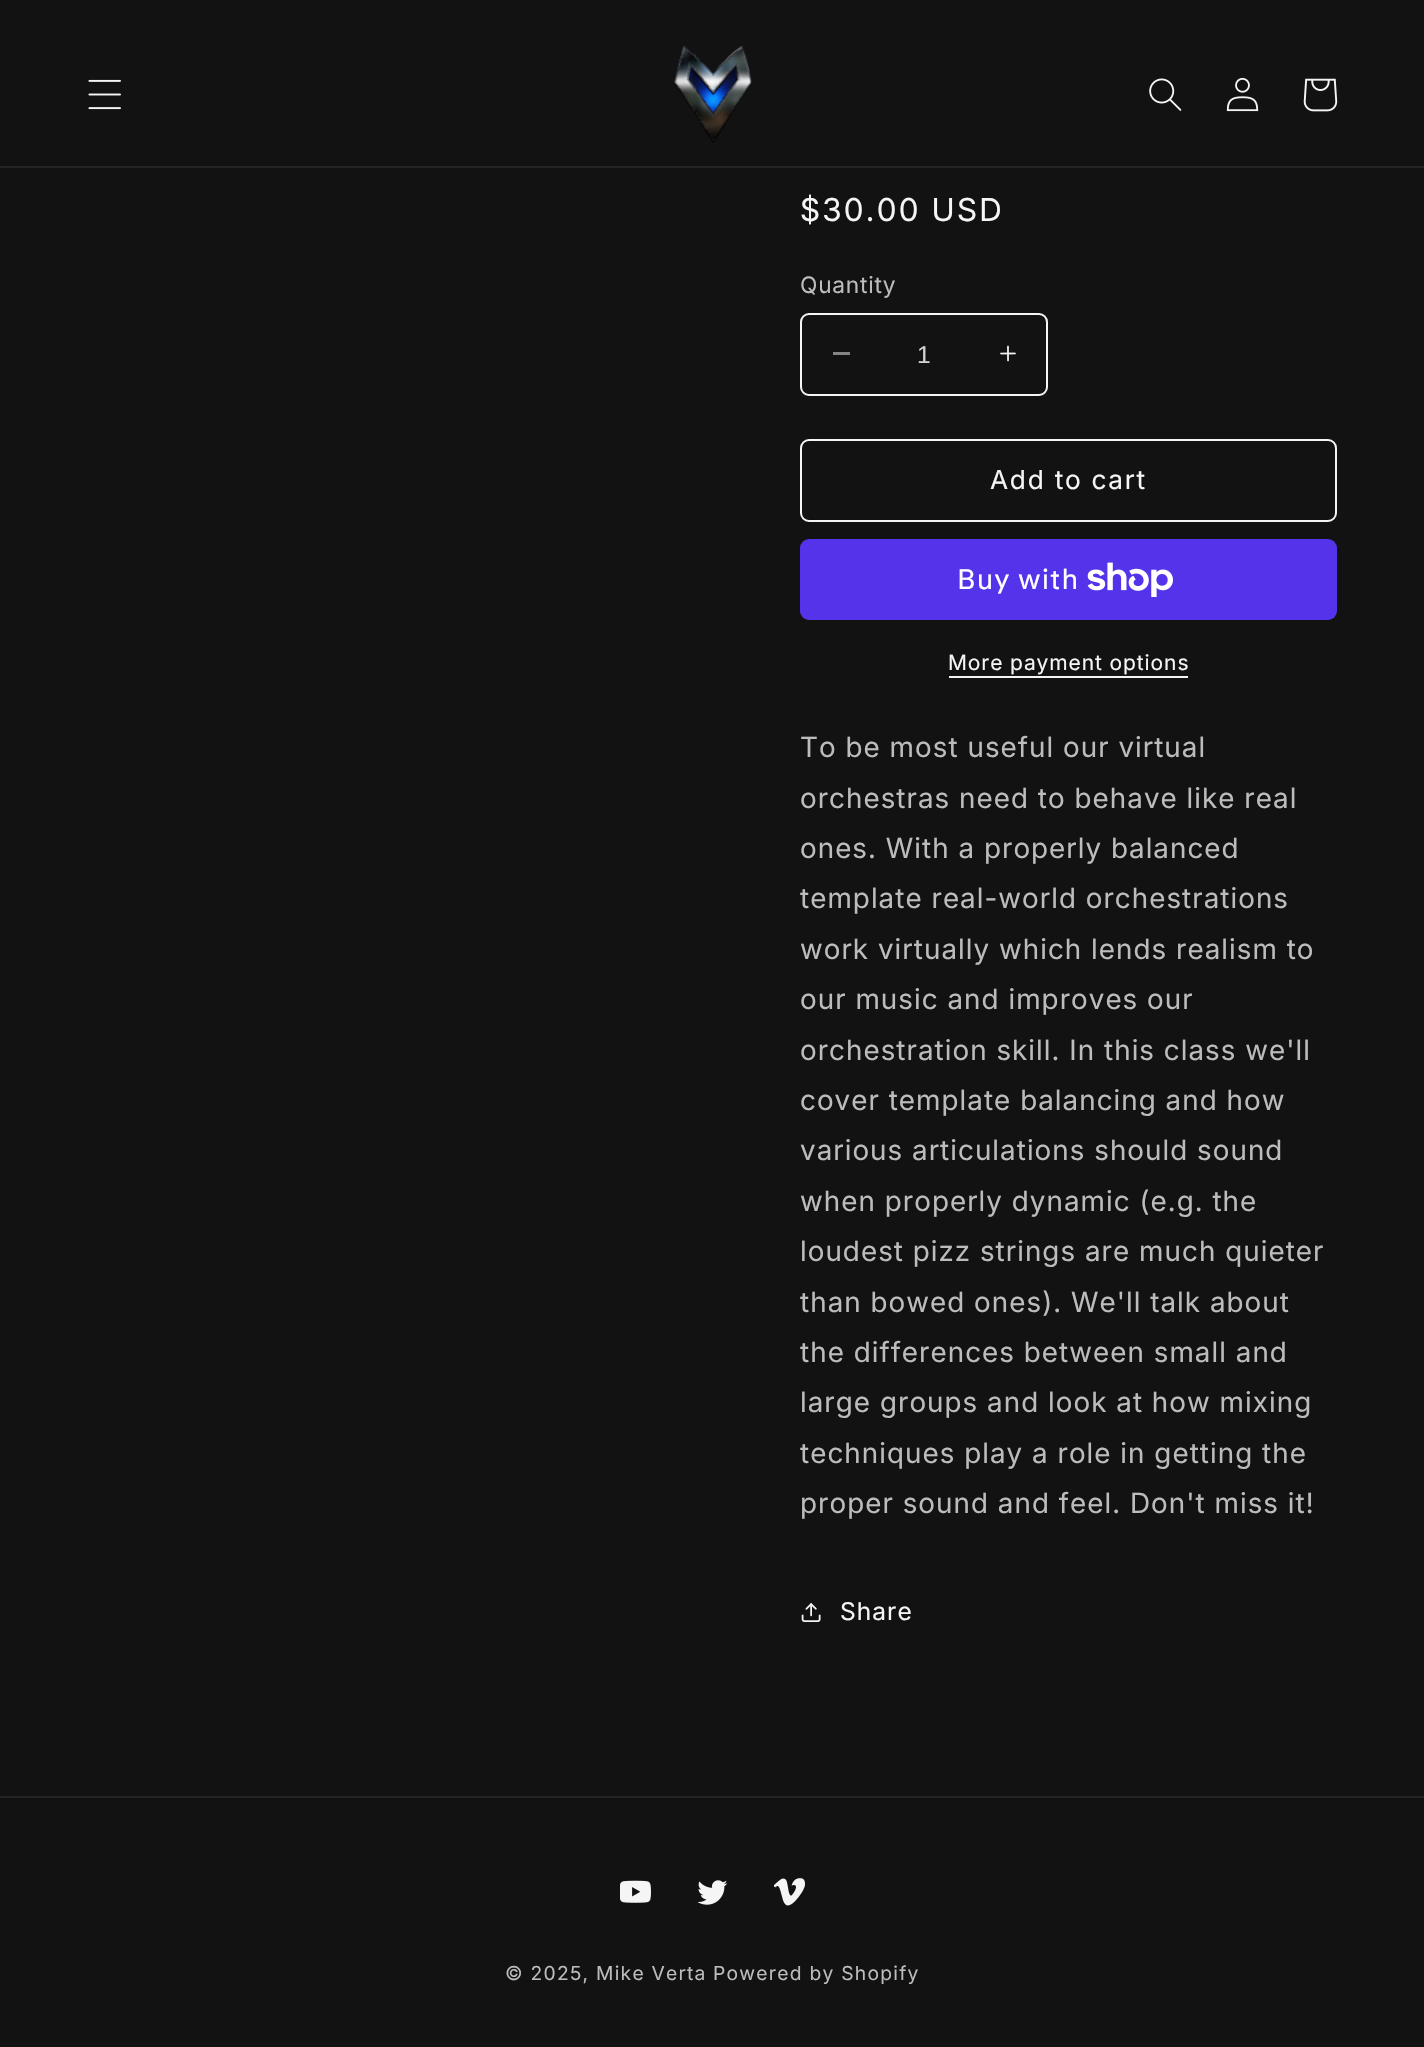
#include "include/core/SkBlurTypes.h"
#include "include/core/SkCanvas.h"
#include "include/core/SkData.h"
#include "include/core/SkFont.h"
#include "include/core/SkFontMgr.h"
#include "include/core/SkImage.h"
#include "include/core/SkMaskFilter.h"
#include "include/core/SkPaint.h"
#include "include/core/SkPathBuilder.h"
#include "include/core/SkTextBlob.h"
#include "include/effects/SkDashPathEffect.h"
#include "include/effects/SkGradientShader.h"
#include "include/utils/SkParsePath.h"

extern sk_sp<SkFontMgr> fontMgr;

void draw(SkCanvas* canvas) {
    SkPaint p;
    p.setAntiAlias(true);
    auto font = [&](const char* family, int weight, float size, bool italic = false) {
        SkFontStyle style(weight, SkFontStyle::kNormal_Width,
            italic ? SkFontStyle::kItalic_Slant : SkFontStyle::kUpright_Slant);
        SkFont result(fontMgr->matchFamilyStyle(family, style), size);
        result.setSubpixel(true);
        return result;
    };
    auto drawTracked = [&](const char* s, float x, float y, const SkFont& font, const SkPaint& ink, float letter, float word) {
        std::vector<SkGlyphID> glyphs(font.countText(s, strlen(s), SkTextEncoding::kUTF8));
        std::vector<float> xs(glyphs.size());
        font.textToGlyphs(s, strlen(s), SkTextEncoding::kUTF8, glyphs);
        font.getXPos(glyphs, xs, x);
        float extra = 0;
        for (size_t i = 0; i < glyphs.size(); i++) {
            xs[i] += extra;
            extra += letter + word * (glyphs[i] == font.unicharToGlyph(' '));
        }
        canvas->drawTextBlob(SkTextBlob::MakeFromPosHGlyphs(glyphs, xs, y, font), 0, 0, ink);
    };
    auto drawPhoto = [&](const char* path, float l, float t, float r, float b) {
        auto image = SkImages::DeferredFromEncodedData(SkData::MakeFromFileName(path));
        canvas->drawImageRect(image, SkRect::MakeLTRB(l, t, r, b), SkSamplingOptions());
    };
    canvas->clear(0xFF121212);
    p.setColor(0xFF242424);
    canvas->drawRect(SkRect::MakeLTRB(0, 166, 1424, 168), p);
    drawPhoto("media/1.png", 88, 79, 121, 110);
    drawPhoto("media/2.png", 674, 46, 752, 143);
    drawPhoto("media/3.png", 1149, 78, 1182, 111);
    drawPhoto("media/4.png", 1226, 77, 1259, 112);
    drawPhoto("media/5.png", 1303, 78, 1338, 112);
    auto font1 = font("Inter", 400, 31.5f);
    p.setColor(0xFFF5F5F5);
    drawTracked("$30.00 USD", 800, 221, font1, p, 2.25f, 0);
    auto font2 = font("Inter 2", 400, 22.75f);
    p.setColor(0xFFBCBCBC);
    drawTracked("Quantity", 800, 293, font2, p, 0.75f, 0);
    p.setColor(0xFF848484);
    canvas->drawRect(SkRect::MakeLTRB(833, 352, 850, 355), p);
    drawPhoto("media/6.png", 1000, 345, 1016, 362);
    p.setStyle(SkPaint::kStroke_Style);
    p.setStrokeWidth(2);
    p.setColor(0xFFF5F5F5);
    canvas->drawRoundRect(SkRect::MakeLTRB(801, 314, 1047, 395), 8, 8, p);
    auto font3 = font("Liberation Sans", 400, 24.5f);
    p.setStyle(SkPaint::kFill_Style);
    p.setColor(0xFFD3D3D3);
    canvas->drawString("1", 917, 363, font3, p);
    p.setStyle(SkPaint::kStroke_Style);
    p.setColor(0xFFF5F5F5);
    canvas->drawRoundRect(SkRect::MakeLTRB(801, 440, 1336, 521), 8, 8, p);
    auto font4 = font("Inter 2", 400, 26.25f);
    p.setStyle(SkPaint::kFill_Style);
    drawTracked("Add to cart", 990, 489, font4, p, 1.75f, 0);
    p.setColor(0xFF5433EB);
    canvas->drawRoundRect(SkRect::MakeLTRB(800, 539, 1337, 620), 9, 9, p);
    auto font5 = font("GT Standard", 400, 28);
    p.setColor(0xFFFFFFFF);
    drawTracked("Buy with", 957, 589, font5, p, 1.05f, 0);
    drawPhoto("media/7.png", 1087, 562, 1173, 597);
    auto font6 = font("Inter 2", 400, 21);
    p.setColor(0xFFF5F5F5);
    drawTracked("More payment options", 948, 670, font6, p, 0.9f, 0);
    canvas->drawRect(SkRect::MakeLTRB(949, 676, 1188, 678), p);
    auto font7 = font("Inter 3", 400, 28);
    p.setColor(0xFFBCBCBC);
    {
        const struct { const char* s; float x, y; } items[] = {
            {"To be most useful our virtual", 800, 757},
            {"orchestras need to behave like real", 800, 808},
            {"ones. With a properly balanced", 800, 858},
            {"template real-world orchestrations", 800, 908},
            {"work virtually which lends realism to", 800, 959},
            {"our music and improves our", 800, 1009},
            {"orchestration skill. In this class we'll", 800, 1060},
            {"cover template balancing and how", 800, 1110},
            {"various articulations should sound", 800, 1160},
            {"when properly dynamic (e.g. the", 800, 1211},
            {"loudest pizz strings are much quieter", 800, 1261},
            {"than bowed ones). We'll talk about", 800, 1312},
            {"the differences between small and", 800, 1362},
            {"large groups and look at how mixing", 800, 1412},
            {"techniques play a role in getting the", 800, 1463},
            {"proper sound and feel. Don't miss it!", 800, 1513},
        };
        for (auto [s, x, y] : items) {
            drawTracked(s, x, y, font7, p, 1.05f, 0);
        }
    }
    drawPhoto("media/8.png", 801, 1603, 821, 1622);
    auto font8 = font("Inter 2", 400, 24.5f);
    p.setColor(0xFFF5F5F5);
    drawTracked("Share", 840, 1620, font8, p, 1.05f, 0);
    p.setColor(0xFF242424);
    canvas->drawRect(SkRect::MakeLTRB(0, 1796, 1424, 1798), p);
    drawPhoto("media/9.png", 620, 1880, 651, 1903);
    drawPhoto("media/10.png", 697, 1880, 728, 1905);
    drawPhoto("media/11.png", 774, 1878, 805, 1906);
    auto font9 = font("Inter 2", 400, 19.25f);
    p.setColor(0xFFBCBCBC);
    drawTracked("© 2025, Mike Verta", 505, 1980, font9, p, 1.25f, 0);
    drawTracked("Powered by Shopify", 713, 1980, font9, p, 1.25f, 0);
}
